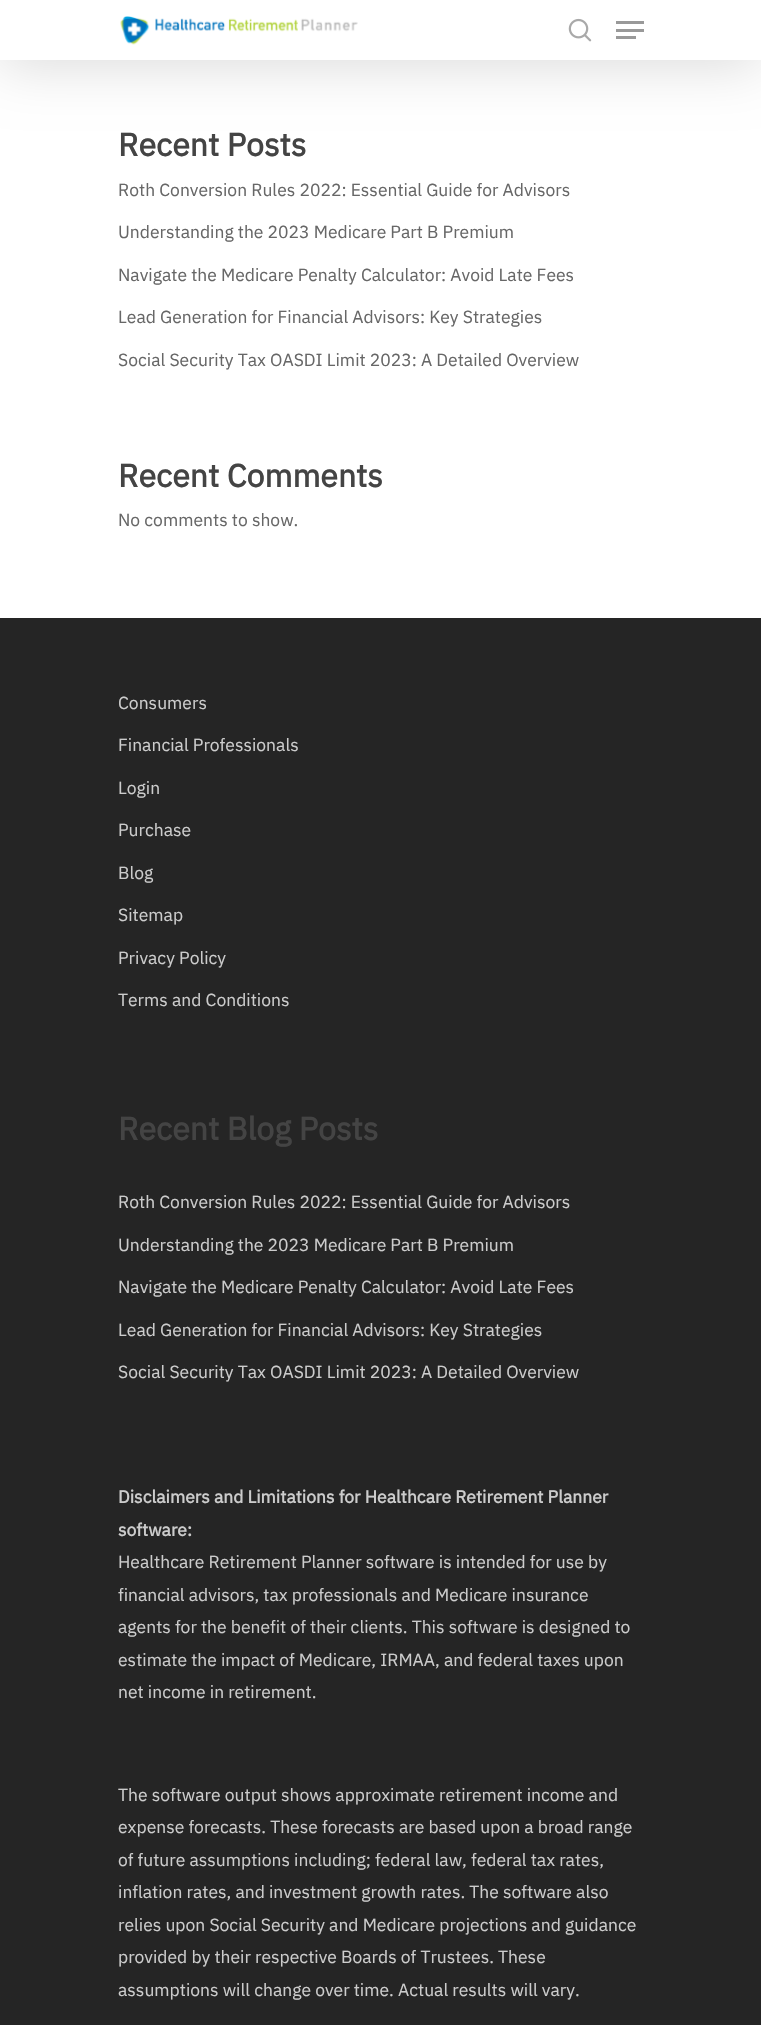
#include "include/core/SkBlurTypes.h"
#include "include/core/SkCanvas.h"
#include "include/core/SkData.h"
#include "include/core/SkFont.h"
#include "include/core/SkFontMgr.h"
#include "include/core/SkImage.h"
#include "include/core/SkMaskFilter.h"
#include "include/core/SkPaint.h"
#include "include/core/SkPathBuilder.h"
#include "include/core/SkTextBlob.h"
#include "include/effects/SkDashPathEffect.h"
#include "include/effects/SkGradientShader.h"
#include "include/utils/SkParsePath.h"

extern sk_sp<SkFontMgr> fontMgr;

void draw(SkCanvas* canvas) {
    SkPaint p;
    p.setAntiAlias(true);
    auto font = [&](const char* family, int weight, float size, bool italic = false) {
        SkFontStyle style(weight, SkFontStyle::kNormal_Width,
            italic ? SkFontStyle::kItalic_Slant : SkFontStyle::kUpright_Slant);
        SkFont result(fontMgr->matchFamilyStyle(family, style), size);
        result.setSubpixel(true);
        return result;
    };
    auto drawPhoto = [&](const char* path, float l, float t, float r, float b) {
        auto image = SkImages::DeferredFromEncodedData(SkData::MakeFromFileName(path));
        canvas->drawImageRect(image, SkRect::MakeLTRB(l, t, r, b), SkSamplingOptions());
    };
    canvas->clear(0xFFFFFFFF);
    p.setColor(0x26000000);
    p.setMaskFilter(SkMaskFilter::MakeBlur(kNormal_SkBlurStyle, 28));
    canvas->drawRect(SkRect::MakeLTRB(0, 4, 761, 64), p);
    p.setMaskFilter(nullptr);
    p.setColor(0xFFFFFFFF);
    canvas->drawRect(SkRect::MakeLTRB(0, 0, 761, 60), p);
    drawPhoto("media/1.png", 120, 16, 358, 45);
    drawPhoto("media/2.png", 568, 18, 592, 42);
    {
        const struct { float l, t, r, b; SkColor color; } items[] = {
            {616, 21, 644, 24, 0xFF999999},
            {616, 36, 636, 39, 0xFF999999},
            {616, 29, 644, 32, 0xFF999999},
        };
        for (auto [l, t, r, b, color] : items) {
            p.setColor(color);
            canvas->drawRect(SkRect::MakeLTRB(l, t, r, b), p);
        }
    }
    auto font1 = font("IBM Plex Sans", 700, 32);
    p.setColor(0xFF444444);
    canvas->drawString("Recent Posts", 118, 156, font1, p);
    auto font2 = font("IBM Plex Sans", 400, 17.5f);
    p.setColor(0xFF676767);
    {
        const struct { const char* s; float x, y; } items[] = {
            {"Roth Conversion Rules 2022: Essential Guide for Advisors", 118, 196},
            {"Understanding the 2023 Medicare Part B Premium", 118, 238},
            {"Navigate the Medicare Penalty Calculator: Avoid Late Fees", 118, 281},
            {"Lead Generation for Financial Advisors: Key Strategies", 118, 323},
            {"Social Security Tax OASDI Limit 2023: A Detailed Overview", 118, 366},
        };
        for (auto [s, x, y] : items) {
            canvas->drawString(s, x, y, font2, p);
        }
    }
    p.setColor(0xFF444444);
    canvas->drawString("Recent Comments", 118, 487, font1, p);
    p.setColor(0xFF676767);
    canvas->drawString("No comments to show.", 118, 526, font2, p);
    p.setColor(0xFF252525);
    canvas->drawRect(SkRect::MakeLTRB(0, 618, 761, 2025), p);
    p.setColor(0xFFCCCCCC);
    {
        const struct { const char* s; float x, y; } items[] = {
            {"Consumers", 118, 709},
            {"Financial Professionals", 118, 751},
            {"Login", 118, 794},
            {"Purchase", 118, 836},
            {"Blog", 118, 879},
            {"Sitemap", 118, 921},
            {"Privacy Policy", 118, 964},
            {"Terms and Conditions", 118, 1006},
        };
        for (auto [s, x, y] : items) {
            canvas->drawString(s, x, y, font2, p);
        }
    }
    p.setColor(0xFF444444);
    canvas->drawString("Recent Blog Posts", 118, 1140, font1, p);
    p.setColor(0xFFCCCCCC);
    {
        const struct { const char* s; float x, y; } items[] = {
            {"Roth Conversion Rules 2022: Essential Guide for Advisors", 118, 1208},
            {"Understanding the 2023 Medicare Part B Premium", 118, 1251},
            {"Navigate the Medicare Penalty Calculator: Avoid Late Fees", 118, 1293},
            {"Lead Generation for Financial Advisors: Key Strategies", 118, 1336},
            {"Social Security Tax OASDI Limit 2023: A Detailed Overview", 118, 1378},
        };
        for (auto [s, x, y] : items) {
            canvas->drawString(s, x, y, font2, p);
        }
    }
    auto font3 = font("IBM Plex Sans", 700, 17.5f);
    canvas->drawString("Disclaimers and Limitations for Healthcare Retirement Planner", 118, 1503, font3, p);
    canvas->drawString("software:", 118, 1536, font3, p);
    {
        const struct { const char* s; float x, y; } items[] = {
            {"Healthcare Retirement Planner software is intended for use by", 118, 1568},
            {"financial advisors, tax professionals and Medicare insurance", 118, 1601},
            {"agents for the benefit of their clients. This software is designed to", 118, 1633},
            {"estimate the impact of Medicare, IRMAA, and federal taxes upon", 118, 1666},
            {"net income in retirement.", 118, 1698},
            {"The software output shows approximate retirement income and", 118, 1801},
            {"expense forecasts. These forecasts are based upon a broad range", 118, 1833},
            {"of future assumptions including; federal law, federal tax rates,", 118, 1866},
            {"inflation rates, and investment growth rates. The software also", 118, 1898},
            {"relies upon Social Security and Medicare projections and guidance", 118, 1931},
            {"provided by their respective Boards of Trustees. These", 118, 1963},
            {"assumptions will change over time. Actual results will vary.", 118, 1996},
        };
        for (auto [s, x, y] : items) {
            canvas->drawString(s, x, y, font2, p);
        }
    }
}
